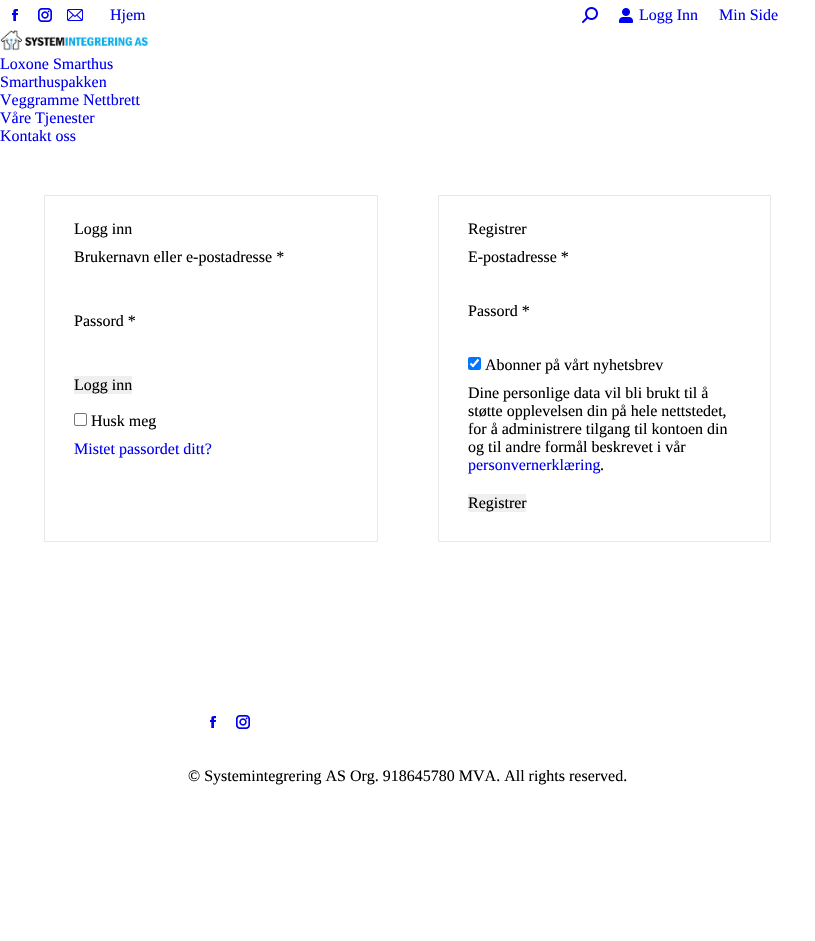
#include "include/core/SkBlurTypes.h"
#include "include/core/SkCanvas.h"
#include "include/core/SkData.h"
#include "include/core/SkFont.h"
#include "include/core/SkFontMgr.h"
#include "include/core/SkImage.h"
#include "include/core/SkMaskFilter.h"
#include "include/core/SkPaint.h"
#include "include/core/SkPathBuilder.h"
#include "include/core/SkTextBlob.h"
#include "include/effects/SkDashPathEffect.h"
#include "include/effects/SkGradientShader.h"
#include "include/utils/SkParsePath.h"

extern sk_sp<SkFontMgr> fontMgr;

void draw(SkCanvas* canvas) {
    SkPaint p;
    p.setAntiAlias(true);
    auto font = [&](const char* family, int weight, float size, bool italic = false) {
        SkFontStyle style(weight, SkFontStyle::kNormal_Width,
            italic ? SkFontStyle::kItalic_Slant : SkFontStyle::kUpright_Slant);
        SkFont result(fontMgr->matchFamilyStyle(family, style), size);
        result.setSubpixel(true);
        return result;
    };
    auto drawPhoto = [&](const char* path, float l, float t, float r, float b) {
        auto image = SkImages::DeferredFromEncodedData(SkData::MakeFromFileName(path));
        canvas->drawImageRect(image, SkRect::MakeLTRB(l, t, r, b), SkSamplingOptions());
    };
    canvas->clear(0xFFFFFFFF);
    drawPhoto("media/1.png", 12, 9, 18, 21);
    drawPhoto("media/2.png", 38, 8, 52, 22);
    drawPhoto("media/3.png", 67, 9, 83, 21);
    auto font1 = font("Liberation Serif", 400, 16);
    p.setColor(0xFF0000EE);
    canvas->drawString("Hjem", 110, 20, font1, p);
    drawPhoto("media/4.png", 582, 7, 598, 23);
    drawPhoto("media/5.png", 619, 8, 633, 23);
    canvas->drawString("Logg Inn", 639, 20, font1, p);
    canvas->drawString("Min Side", 719, 20, font1, p);
    drawPhoto("media/6.png", 0, 30, 149, 51);
    {
        const struct { const char* s; float x, y; } items[] = {
            {"Loxone Smarthus", 0, 69},
            {"Smarthuspakken", 0, 87},
            {"Veggramme Nettbrett", 0, 105},
            {"Våre Tjenester", 0, 123},
            {"Kontakt oss", 0, 141},
        };
        for (auto [s, x, y] : items) {
            canvas->drawString(s, x, y, font1, p);
        }
    }
    p.setStyle(SkPaint::kStroke_Style);
    p.setStrokeWidth(1);
    p.setColor(0xFFE8E8E8);
    canvas->drawRect(SkRect::MakeLTRB(44.5f, 195.5f, 377.5f, 541.5f), p);
    p.setStyle(SkPaint::kFill_Style);
    p.setColor(0xFF000000);
    {
        const struct { const char* s; float x, y; } items[] = {
            {"Logg inn", 74, 234},
            {"Brukernavn eller e-postadresse *", 74, 262},
            {"Passord *", 74, 326},
        };
        for (auto [s, x, y] : items) {
            canvas->drawString(s, x, y, font1, p);
        }
    }
    p.setColor(0xFFEFEFEF);
    canvas->drawRect(SkRect::MakeLTRB(74, 376, 132, 394), p);
    p.setColor(0xFF000000);
    canvas->drawString("Logg inn", 74, 390, font1, p);
    p.setStyle(SkPaint::kStroke_Style);
    p.setColor(0xFF767676);
    canvas->drawRoundRect(SkRect::MakeLTRB(74.5f, 413.5f, 86.5f, 425.5f), 1.5f, 1.5f, p);
    p.setStyle(SkPaint::kFill_Style);
    p.setColor(0xFF000000);
    canvas->drawString("Husk meg", 91, 426, font1, p);
    p.setColor(0xFF0000EE);
    canvas->drawString("Mistet passordet ditt?", 74, 454, font1, p);
    p.setStyle(SkPaint::kStroke_Style);
    p.setColor(0xFFE8E8E8);
    canvas->drawRect(SkRect::MakeLTRB(438.5f, 195.5f, 770.5f, 541.5f), p);
    p.setStyle(SkPaint::kFill_Style);
    p.setColor(0xFF000000);
    {
        const struct { const char* s; float x, y; } items[] = {
            {"Registrer", 468, 234},
            {"E-postadresse *", 468, 262},
            {"Passord *", 468, 316},
        };
        for (auto [s, x, y] : items) {
            canvas->drawString(s, x, y, font1, p);
        }
    }
    p.setColor(0xFF0075FF);
    canvas->drawRoundRect(SkRect::MakeLTRB(468, 357, 481, 370), 2, 2, p);
    p.setStyle(SkPaint::kStroke_Style);
    p.setStrokeWidth(2.1f);
    p.setColor(0xFFFFFFFF);
    canvas->drawPath(SkPathBuilder().moveTo(470.5f, 363.5f).lineTo(473, 366).lineTo(478.5f, 359.5f).detach(), p);
    p.setStyle(SkPaint::kFill_Style);
    p.setColor(0xFF000000);
    {
        const struct { const char* s; float x, y; } items[] = {
            {"Abonner på vårt nyhetsbrev", 485, 370},
            {"Dine personlige data vil bli brukt til å", 468, 398},
            {"støtte opplevelsen din på hele nettstedet,", 468, 416},
            {"for å administrere tilgang til kontoen din", 468, 434},
            {"og til andre formål beskrevet i vår", 468, 452},
        };
        for (auto [s, x, y] : items) {
            canvas->drawString(s, x, y, font1, p);
        }
    }
    p.setColor(0xFF0000EE);
    canvas->drawString("personvernerklæring", 468, 470, font1, p);
    p.setColor(0xFF000000);
    canvas->drawString(".", 600, 470, font1, p);
    p.setColor(0xFFEFEFEF);
    canvas->drawRect(SkRect::MakeLTRB(468, 494, 526, 512), p);
    p.setColor(0xFF000000);
    canvas->drawString("Registrer", 468, 508, font1, p);
    drawPhoto("media/1.png", 210, 716, 216, 728);
    drawPhoto("media/2.png", 236, 715, 250, 729);
    canvas->drawString("© Systemintegrering AS Org. 918645780 MVA. All rights reserved.", 188, 781, font1, p);
}
